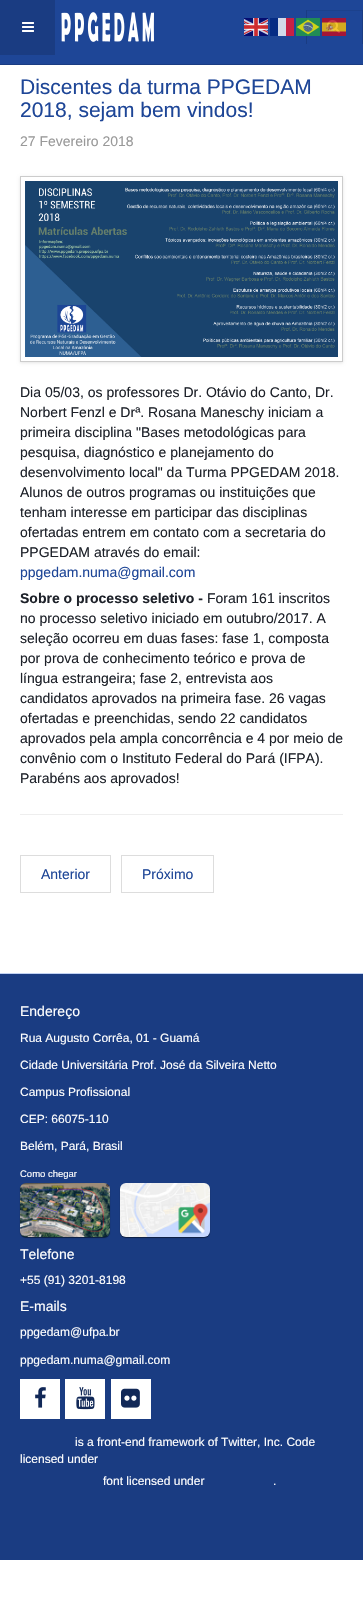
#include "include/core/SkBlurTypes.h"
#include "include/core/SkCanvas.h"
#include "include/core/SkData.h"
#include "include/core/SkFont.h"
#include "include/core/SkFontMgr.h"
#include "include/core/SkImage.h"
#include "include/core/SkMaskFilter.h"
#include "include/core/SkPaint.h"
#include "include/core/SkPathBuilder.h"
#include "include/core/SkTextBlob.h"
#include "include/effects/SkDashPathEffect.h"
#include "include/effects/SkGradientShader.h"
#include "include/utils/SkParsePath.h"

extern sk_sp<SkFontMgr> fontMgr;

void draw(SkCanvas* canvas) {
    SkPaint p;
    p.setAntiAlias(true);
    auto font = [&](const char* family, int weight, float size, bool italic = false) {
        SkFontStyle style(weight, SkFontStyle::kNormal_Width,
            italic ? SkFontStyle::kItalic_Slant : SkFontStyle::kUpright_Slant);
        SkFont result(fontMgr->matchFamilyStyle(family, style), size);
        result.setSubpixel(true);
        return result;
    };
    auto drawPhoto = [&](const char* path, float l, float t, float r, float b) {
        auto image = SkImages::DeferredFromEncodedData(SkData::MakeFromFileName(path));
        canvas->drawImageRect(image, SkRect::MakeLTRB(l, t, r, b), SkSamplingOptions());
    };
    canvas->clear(0xFFFFFFFF);
    {
        const struct { float l, t, r, b; SkColor color; } items[] = {
            {0, 0, 363, 64, 0xFF1E4697},
            {0, 64, 363, 65, 0xFF1A3C82},
            {0, 0, 55, 55, 0xFF1A3C82},
        };
        for (auto [l, t, r, b, color] : items) {
            p.setColor(color);
            canvas->drawRect(SkRect::MakeLTRB(l, t, r, b), p);
        }
    }
    drawPhoto("media/1.png", 22, 22, 34, 32);
    drawPhoto("media/2.png", 61, 12, 154, 42);
    {
        const struct { float l, t, r, b; SkColor color; } items[] = {
            {362, 10, 363, 44, 0xFF1A3C82},
            {306, 10, 307, 44, 0xFF1A3C82},
            {307, 10, 362, 11, 0xFF1C418C},
        };
        for (auto [l, t, r, b, color] : items) {
            p.setColor(color);
            canvas->drawRect(SkRect::MakeLTRB(l, t, r, b), p);
        }
    }
    drawPhoto("media/3.png", 327, 20, 340, 33);
    drawPhoto("media/4.png", 244, 18, 268, 36);
    {
        const struct { float l, t, r, b; SkColor color; } items[] = {
            {270, 18, 278, 36, 0xFF062C84},
            {278, 18, 286, 36, 0xFFD2DAEA},
            {286, 18, 294, 36, 0xFFC82145},
        };
        for (auto [l, t, r, b, color] : items) {
            p.setColor(color);
            canvas->drawRect(SkRect::MakeLTRB(l, t, r, b), p);
        }
    }
    drawPhoto("media/5.png", 296, 18, 320, 36);
    drawPhoto("media/6.png", 322, 18, 346, 36);
    auto font1 = font("Liberation Sans", 400, 21);
    p.setColor(0xFF1E4697);
    canvas->drawString("Discentes da turma PPGEDAM", 20, 94, font1, p);
    canvas->drawString("2018, sejam bem vindos!", 20, 117, font1, p);
    auto font2 = font("Liberation Sans", 400, 14);
    p.setColor(0xFF999999);
    canvas->drawString("27 Fevereiro 2018", 20, 146, font2, p);
    canvas->save();
    canvas->clipPath(SkPathBuilder(SkPathFillType::kEvenOdd).moveTo(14, 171).lineTo(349, 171).lineTo(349, 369).lineTo(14, 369).close().moveTo(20, 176).lineTo(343, 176).lineTo(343, 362).lineTo(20, 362).close().detach(), true);
    p.setColor(0x1A000000);
    p.setMaskFilter(SkMaskFilter::MakeBlur(kNormal_SkBlurStyle, 1.5f));
    canvas->drawRect(SkRect::MakeLTRB(20, 177, 343, 363), p);
    p.setMaskFilter(nullptr);
    canvas->restore();
    p.setStyle(SkPaint::kStroke_Style);
    p.setStrokeWidth(1);
    p.setColor(0xFFCCCCCC);
    canvas->drawRect(SkRect::MakeLTRB(20.5f, 176.5f, 342.5f, 361.5f), p);
    drawPhoto("media/7.png", 25, 181, 338, 357);
    p.setStyle(SkPaint::kFill_Style);
    p.setColor(0xFF1D2129);
    {
        const struct { const char* s; float x, y; } items[] = {
            {"Dia 05/03, os professores Dr. Otávio do Canto, Dr.", 20, 397},
            {"Norbert Fenzl e Drª. Rosana Maneschy iniciam a", 20, 417},
            {"primeira disciplina \"Bases metodológicas para", 20, 437},
            {"pesquisa, diagnóstico e planejamento do", 20, 457},
            {"desenvolvimento local\" da Turma PPGEDAM 2018.", 20, 477},
            {"Alunos de outros programas ou instituições que", 20, 497},
            {"tenham interesse em participar das disciplinas", 20, 517},
            {"ofertadas entrem em contato com a secretaria do", 20, 537},
            {"PPGEDAM através do email:", 20, 557},
        };
        for (auto [s, x, y] : items) {
            canvas->drawString(s, x, y, font2, p);
        }
    }
    p.setColor(0xFF1E4697);
    canvas->drawString("ppgedam.numa@gmail.com", 20, 577, font2, p);
    auto font3 = font("Liberation Sans", 700, 14);
    p.setColor(0xFF1D2129);
    canvas->drawString("Sobre o processo seletivo -", 20, 603, font3, p);
    {
        const struct { const char* s; float x, y; } items[] = {
            {"Foram 161 inscritos", 207, 603},
            {"no processo seletivo iniciado em outubro/2017. A", 20, 623},
            {"seleção ocorreu em duas fases: fase 1, composta", 20, 643},
            {"por prova de conhecimento teórico e prova de", 20, 663},
            {"língua estrangeira; fase 2, entrevista aos", 20, 683},
            {"candidatos aprovados na primeira fase. 26 vagas", 20, 703},
            {"ofertadas e preenchidas, sendo 22 candidatos", 20, 723},
            {"aprovados pela ampla concorrência e 4 por meio de", 20, 743},
            {"convênio com o Instituto Federal do Pará (IFPA).", 20, 763},
            {"Parabéns aos aprovados!", 20, 783},
        };
        for (auto [s, x, y] : items) {
            canvas->drawString(s, x, y, font2, p);
        }
    }
    p.setColor(0xFFEEEEEE);
    canvas->drawRect(SkRect::MakeLTRB(20, 814, 343, 815), p);
    p.setStyle(SkPaint::kStroke_Style);
    p.setColor(0xFFDDDDDD);
    canvas->drawRect(SkRect::MakeLTRB(20.5f, 855.5f, 110.5f, 892.5f), p);
    p.setStyle(SkPaint::kFill_Style);
    p.setColor(0xFF1E4697);
    canvas->drawString("Anterior", 41, 879, font2, p);
    p.setStyle(SkPaint::kStroke_Style);
    p.setColor(0xFFDDDDDD);
    canvas->drawRect(SkRect::MakeLTRB(121.5f, 855.5f, 213.5f, 892.5f), p);
    p.setStyle(SkPaint::kFill_Style);
    p.setColor(0xFF1E4697);
    canvas->drawString("Próximo", 142, 879, font2, p);
    p.setColor(0xFF1A3C82);
    canvas->drawRect(SkRect::MakeLTRB(0, 974, 363, 1560), p);
    p.setColor(0xFFC1D2F3);
    canvas->drawRect(SkRect::MakeLTRB(0, 973, 363, 974), p);
    p.setColor(0xFFFFFFFF);
    canvas->drawString("Endereço", 20, 1016, font2, p);
    auto font4 = font("Liberation Sans", 400, 12);
    {
        const struct { const char* s; float x, y; } items[] = {
            {"Rua Augusto Corrêa, 01 - Guamá", 20, 1042},
            {"Cidade Universitária Prof. José da Silveira Netto", 20, 1069},
            {"Campus Profissional", 20, 1096},
            {"CEP: 66075-110", 20, 1123},
            {"Belém, Pará, Brasil", 20, 1150},
        };
        for (auto [s, x, y] : items) {
            canvas->drawString(s, x, y, font4, p);
        }
    }
    auto font5 = font("Liberation Sans", 400, 9.5f);
    canvas->drawString("Como chegar", 20, 1177, font5, p);
    p.setColor(0x80000000);
    p.setMaskFilter(SkMaskFilter::MakeBlur(kNormal_SkBlurStyle, 0.5f));
    canvas->drawRoundRect(SkRect::MakeLTRB(20, 1184, 110, 1238), 6, 6, p);
    p.setMaskFilter(nullptr);
    p.setMaskFilter(SkMaskFilter::MakeBlur(kNormal_SkBlurStyle, 0.5f));
    canvas->drawRoundRect(SkRect::MakeLTRB(120, 1184, 210, 1238), 6, 6, p);
    p.setMaskFilter(nullptr);
    drawPhoto("media/8.png", 20, 1183, 110, 1237);
    drawPhoto("media/9.png", 120, 1183, 210, 1237);
    p.setColor(0xFFFFFFFF);
    canvas->drawString("Telefone", 20, 1259, font2, p);
    canvas->drawString("+55 (91) 3201-8198", 20, 1284, font4, p);
    canvas->drawString("E-mails", 20, 1311, font2, p);
    canvas->drawString("ppgedam@ufpa.br", 20, 1336, font4, p);
    canvas->drawString("ppgedam.numa@gmail.com", 20, 1364, font4, p);
    canvas->drawRect(SkRect::MakeLTRB(20, 1379, 60, 1419), p);
    drawPhoto("media/10.png", 35, 1387, 46, 1408);
    canvas->drawRect(SkRect::MakeLTRB(65, 1379, 105, 1419), p);
    drawPhoto("media/11.png", 76, 1387, 95, 1410);
    canvas->drawRect(SkRect::MakeLTRB(111, 1379, 151, 1419), p);
    drawPhoto("media/12.png", 121, 1388, 140, 1408);
    {
        const struct { const char* s; float x, y; } items[] = {
            {"is a front-end framework of Twitter, Inc. Code", 75, 1446},
            {"licensed under", 20, 1463},
            {"font licensed under", 103, 1485},
            {".", 273, 1485},
        };
        for (auto [s, x, y] : items) {
            canvas->drawString(s, x, y, font4, p);
        }
    }
}
